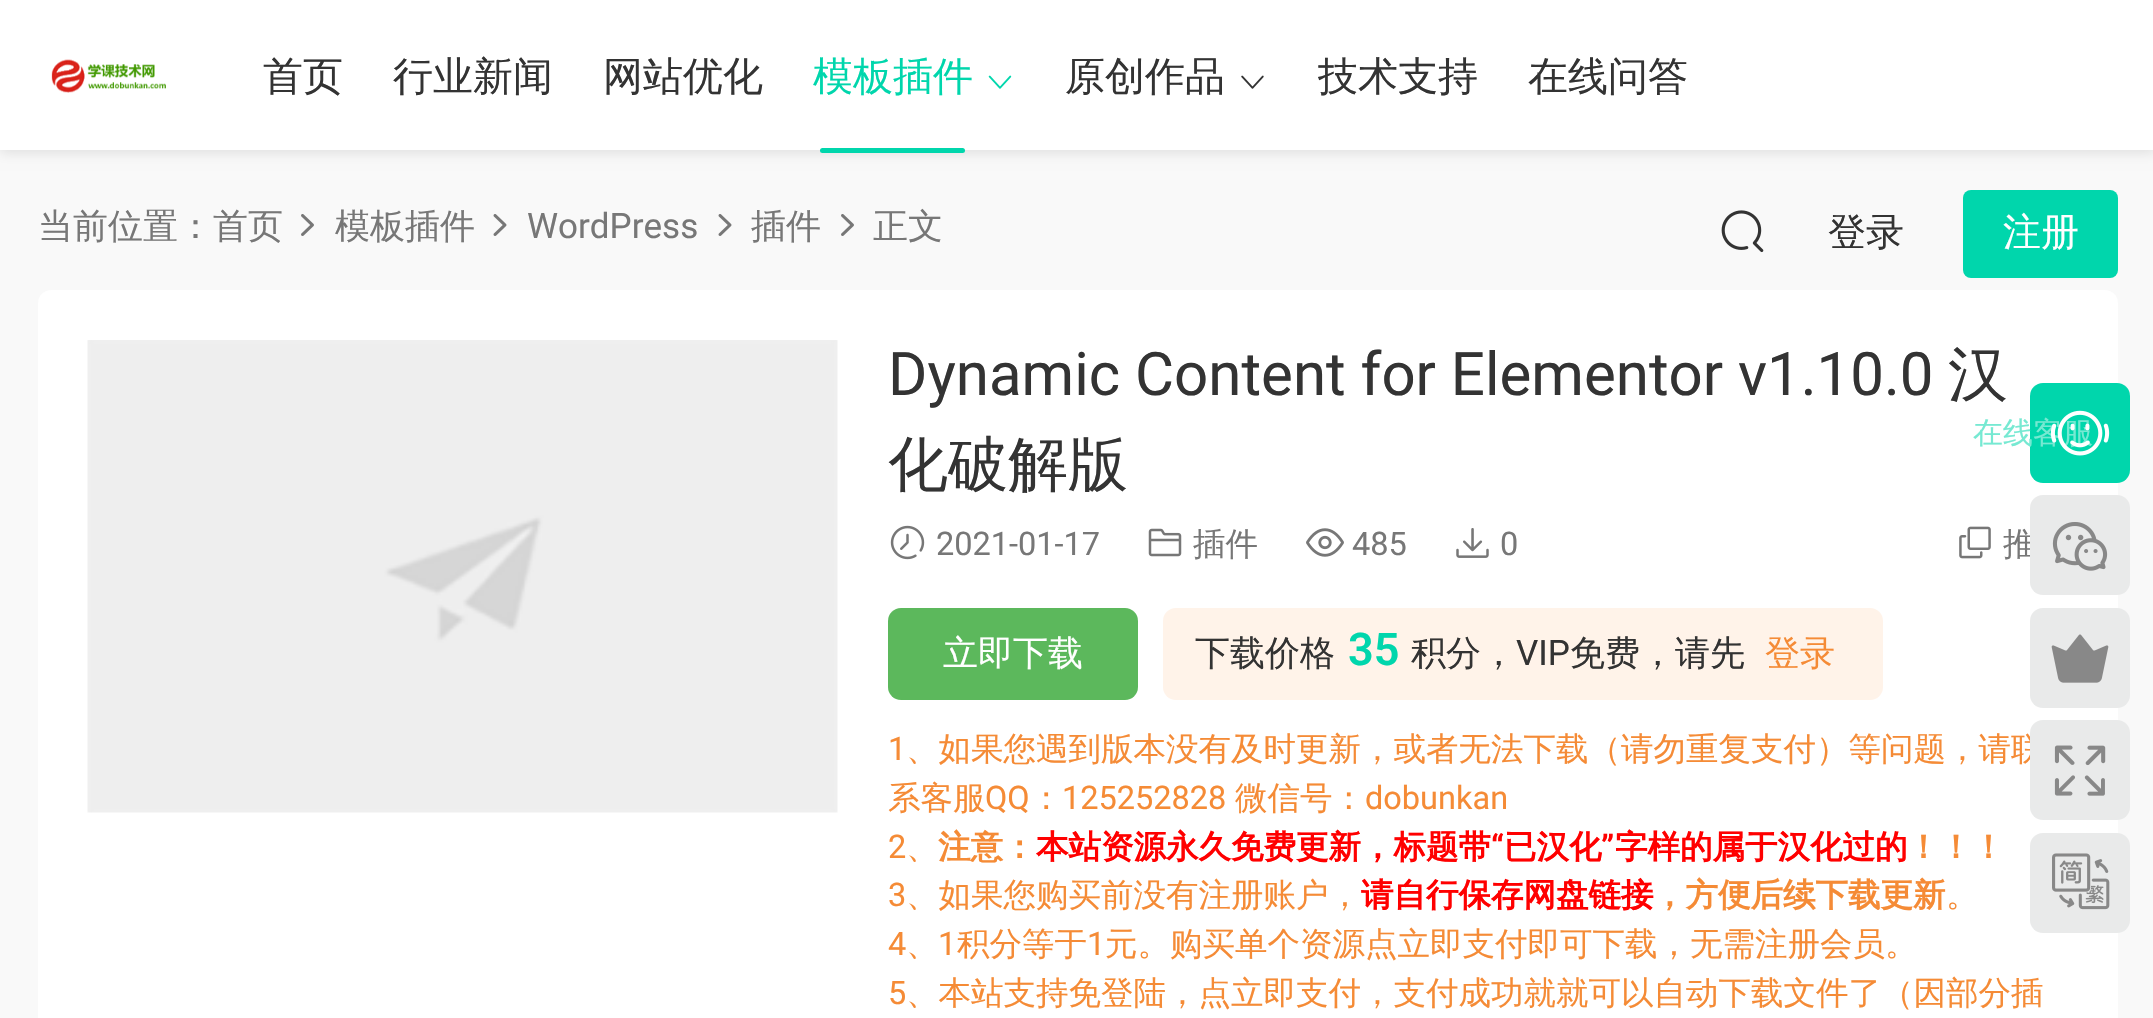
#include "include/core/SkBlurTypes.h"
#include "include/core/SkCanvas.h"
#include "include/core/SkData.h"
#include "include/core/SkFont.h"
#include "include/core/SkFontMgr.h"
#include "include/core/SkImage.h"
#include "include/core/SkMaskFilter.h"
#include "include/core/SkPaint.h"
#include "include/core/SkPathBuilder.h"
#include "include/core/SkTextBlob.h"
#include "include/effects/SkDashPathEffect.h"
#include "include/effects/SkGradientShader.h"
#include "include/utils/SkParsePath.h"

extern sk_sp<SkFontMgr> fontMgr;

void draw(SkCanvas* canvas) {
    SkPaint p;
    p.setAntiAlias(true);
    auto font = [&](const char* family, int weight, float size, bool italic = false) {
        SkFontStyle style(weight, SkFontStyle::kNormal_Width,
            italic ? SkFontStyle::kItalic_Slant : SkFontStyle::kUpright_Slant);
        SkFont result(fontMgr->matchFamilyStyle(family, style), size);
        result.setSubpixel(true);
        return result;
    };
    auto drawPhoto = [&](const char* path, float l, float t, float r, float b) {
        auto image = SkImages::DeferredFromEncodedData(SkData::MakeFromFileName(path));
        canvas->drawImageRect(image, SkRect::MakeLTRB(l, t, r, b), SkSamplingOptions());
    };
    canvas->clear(0xFFF9F9F9);
    p.setColor(0x1A000000);
    p.setMaskFilter(SkMaskFilter::MakeBlur(kNormal_SkBlurStyle, 6));
    canvas->drawRect(SkRect::MakeLTRB(0, 3, 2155, 153), p);
    p.setMaskFilter(nullptr);
    p.setColor(0xFFFFFFFF);
    canvas->drawRect(SkRect::MakeLTRB(0, 0, 2153, 150), p);
    drawPhoto("media/1.png", 51, 59, 166, 93);
    auto font1 = font("WenQuanYi Zen Hei", 500, 40);
    p.setColor(0xFF333333);
    {
        const struct { const char* s; float x, y; } items[] = {
            {"首页", 263, 90},
            {"行业新闻", 393, 90},
            {"网站优化", 603, 90},
        };
        for (auto [s, x, y] : items) {
            canvas->drawString(s, x, y, font1, p);
        }
    }
    p.setColor(0xFF00D6AC);
    canvas->drawString("模板插件", 813, 90, font1, p);
    canvas->drawRoundRect(SkRect::MakeLTRB(820, 148, 965, 153), 2.5f, 2.5f, p);
    drawPhoto("media/2.png", 988, 75, 1012, 89);
    p.setColor(0xFF333333);
    canvas->drawString("原创作品", 1065, 90, font1, p);
    drawPhoto("media/3.png", 1241, 75, 1264, 89);
    canvas->drawString("技术支持", 1318, 90, font1, p);
    canvas->drawString("在线问答", 1528, 90, font1, p);
    drawPhoto("media/4.png", 1721, 210, 1764, 253);
    auto font2 = font("WenQuanYi Zen Hei", 500, 38);
    canvas->drawString("登录", 1828, 245, font2, p);
    p.setColor(0xFF00D6AC);
    canvas->drawRoundRect(SkRect::MakeLTRB(1963, 190, 2118, 278), 8, 8, p);
    p.setColor(0xFFFFFFFF);
    canvas->drawString("注册", 2003, 245, font2, p);
    auto font3 = font("WenQuanYi Zen Hei", 500, 35);
    p.setColor(0xFF777777);
    canvas->drawString("当前位置：首页", 38, 238, font3, p);
    drawPhoto("media/5.png", 301, 214, 314, 236);
    canvas->drawString("模板插件", 335, 238, font3, p);
    drawPhoto("media/6.png", 493, 214, 507, 236);
    auto font4 = font("Roboto", 400, 35);
    canvas->drawString("WordPress", 527, 238, font4, p);
    drawPhoto("media/6.png", 718, 214, 732, 236);
    canvas->drawString("插件", 751, 238, font3, p);
    drawPhoto("media/5.png", 841, 214, 854, 236);
    canvas->drawString("正文", 873, 238, font3, p);
    p.setColor(0xFFFFFFFF);
    canvas->drawRoundRect(SkRect::MakeLTRB(38, 290, 2118, 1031), 13, 13, p);
    drawPhoto("media/7.png", 87, 340, 838, 813);
    auto font5 = font("Roboto", 400, 60);
    p.setColor(0xFF333333);
    canvas->drawString("Dynamic Content for Elementor v1.10.0", 888, 395, font5, p);
    auto font6 = font("WenQuanYi Zen Hei", 500, 60);
    canvas->drawString("汉", 1948, 395, font6, p);
    canvas->drawString("化破解版", 888, 485, font6, p);
    drawPhoto("media/8.png", 890, 525, 925, 560);
    auto font7 = font("Roboto", 400, 32.5f);
    p.setColor(0xFF777777);
    canvas->drawString("2021-01-17", 936, 555, font7, p);
    drawPhoto("media/9.png", 1148, 528, 1182, 557);
    auto font8 = font("WenQuanYi Zen Hei", 500, 32.5f);
    canvas->drawString("插件", 1193, 555, font8, p);
    drawPhoto("media/10.png", 1306, 528, 1344, 557);
    canvas->drawString("485", 1352, 555, font7, p);
    drawPhoto("media/11.png", 1456, 528, 1489, 558);
    canvas->drawString("0", 1500, 555, font7, p);
    drawPhoto("media/12.png", 1959, 526, 1991, 559);
    canvas->drawString("推", 2003, 555, font8, p);
    p.setColor(0xFF5CB85C);
    canvas->drawRoundRect(SkRect::MakeLTRB(888, 608, 1138, 700), 13, 13, p);
    p.setColor(0xFFFFFFFF);
    canvas->drawString("立即下载", 943, 665, font3, p);
    p.setColor(0xFFFFF3E9);
    canvas->drawRoundRect(SkRect::MakeLTRB(1163, 608, 1883, 700), 13, 13, p);
    p.setColor(0xFF333333);
    canvas->drawString("下载价格", 1195, 665, font3, p);
    auto font9 = font("Roboto", 600, 45);
    p.setColor(0xFF00D6AC);
    canvas->drawString("35", 1348, 665, font9, p);
    p.setColor(0xFF333333);
    canvas->drawString("积分，", 1411, 665, font3, p);
    canvas->drawString("VIP", 1516, 665, font4, p);
    canvas->drawString("免费，请先", 1570, 665, font3, p);
    p.setColor(0xFFF58B36);
    canvas->drawString("登录", 1765, 665, font3, p);
    canvas->drawString("1", 888, 760, font7, p);
    canvas->drawString("、如果您遇到版本没有及时更新，或者无法下载（请勿重复支付）等问题，请联", 906, 760, font8, p);
    canvas->drawString("系客服", 888, 809, font8, p);
    canvas->drawString("QQ", 985, 809, font7, p);
    canvas->drawString("：", 1030, 809, font8, p);
    canvas->drawString("125252828", 1062, 809, font7, p);
    canvas->drawString("微信号：", 1235, 809, font8, p);
    canvas->drawString("dobunkan", 1365, 809, font7, p);
    canvas->drawString("2", 888, 858, font7, p);
    canvas->drawString("、", 906, 858, font8, p);
    auto font10 = font("WenQuanYi Zen Hei", 700, 32.5f);
    canvas->drawString("注意：", 938, 858, font10, p);
    p.setColor(0xFFFF0000);
    canvas->drawString("本站资源永久免费更新，标题带", 1036, 858, font10, p);
    auto font11 = font("Roboto", 700, 32.5f);
    canvas->drawString("“", 1491, 858, font11, p);
    canvas->drawString("已汉化", 1504, 858, font10, p);
    canvas->drawString("”", 1601, 858, font11, p);
    canvas->drawString("字样的属于汉化过的", 1615, 858, font10, p);
    p.setColor(0xFFF58B36);
    canvas->drawString("！！！", 1907, 858, font10, p);
    canvas->drawString("3", 888, 906, font7, p);
    canvas->drawString("、如果您购买前没有注册账户，", 906, 906, font8, p);
    p.setColor(0xFFFF0000);
    canvas->drawString("请自行保存网盘链接", 1361, 906, font10, p);
    p.setColor(0xFFF58B36);
    canvas->drawString("，方便后续下载更新", 1653, 906, font10, p);
    canvas->drawString("。", 1946, 906, font8, p);
    canvas->drawString("4", 888, 955, font7, p);
    canvas->drawString("、", 906, 955, font8, p);
    canvas->drawString("1", 938, 955, font7, p);
    canvas->drawString("积分等于", 957, 955, font8, p);
    canvas->drawString("1", 1087, 955, font7, p);
    canvas->drawString("元。购买单个资源点立即支付即可下载，无需注册会员。", 1105, 955, font8, p);
    canvas->drawString("5", 888, 1004, font7, p);
    canvas->drawString("、本站支持免登陆，点立即支付，支付成功就就可以自动下载文件了（因部分插", 906, 1004, font8, p);
    p.setColor(0xFF00D6AC);
    canvas->drawRoundRect(SkRect::MakeLTRB(2030, 383, 2130, 483), 13, 13, p);
    auto font12 = font("WenQuanYi Zen Hei", 500, 30);
    p.setColor(0xFF76E9D2);
    canvas->drawString("在线客服", 1973, 443, font12, p);
    drawPhoto("media/13.png", 2050, 410, 2110, 456);
    p.setColor(0xFFE9EAEA);
    canvas->drawRoundRect(SkRect::MakeLTRB(2030, 495, 2130, 595), 13, 13, p);
    drawPhoto("media/14.png", 2052, 522, 2108, 571);
    canvas->drawRoundRect(SkRect::MakeLTRB(2030, 608, 2130, 708), 13, 13, p);
    drawPhoto("media/15.png", 2051, 634, 2109, 683);
    canvas->drawRoundRect(SkRect::MakeLTRB(2030, 720, 2130, 820), 13, 13, p);
    drawPhoto("media/16.png", 2054, 745, 2106, 796);
    canvas->drawRoundRect(SkRect::MakeLTRB(2030, 833, 2130, 933), 13, 13, p);
    drawPhoto("media/17.png", 2052, 853, 2110, 910);
}
